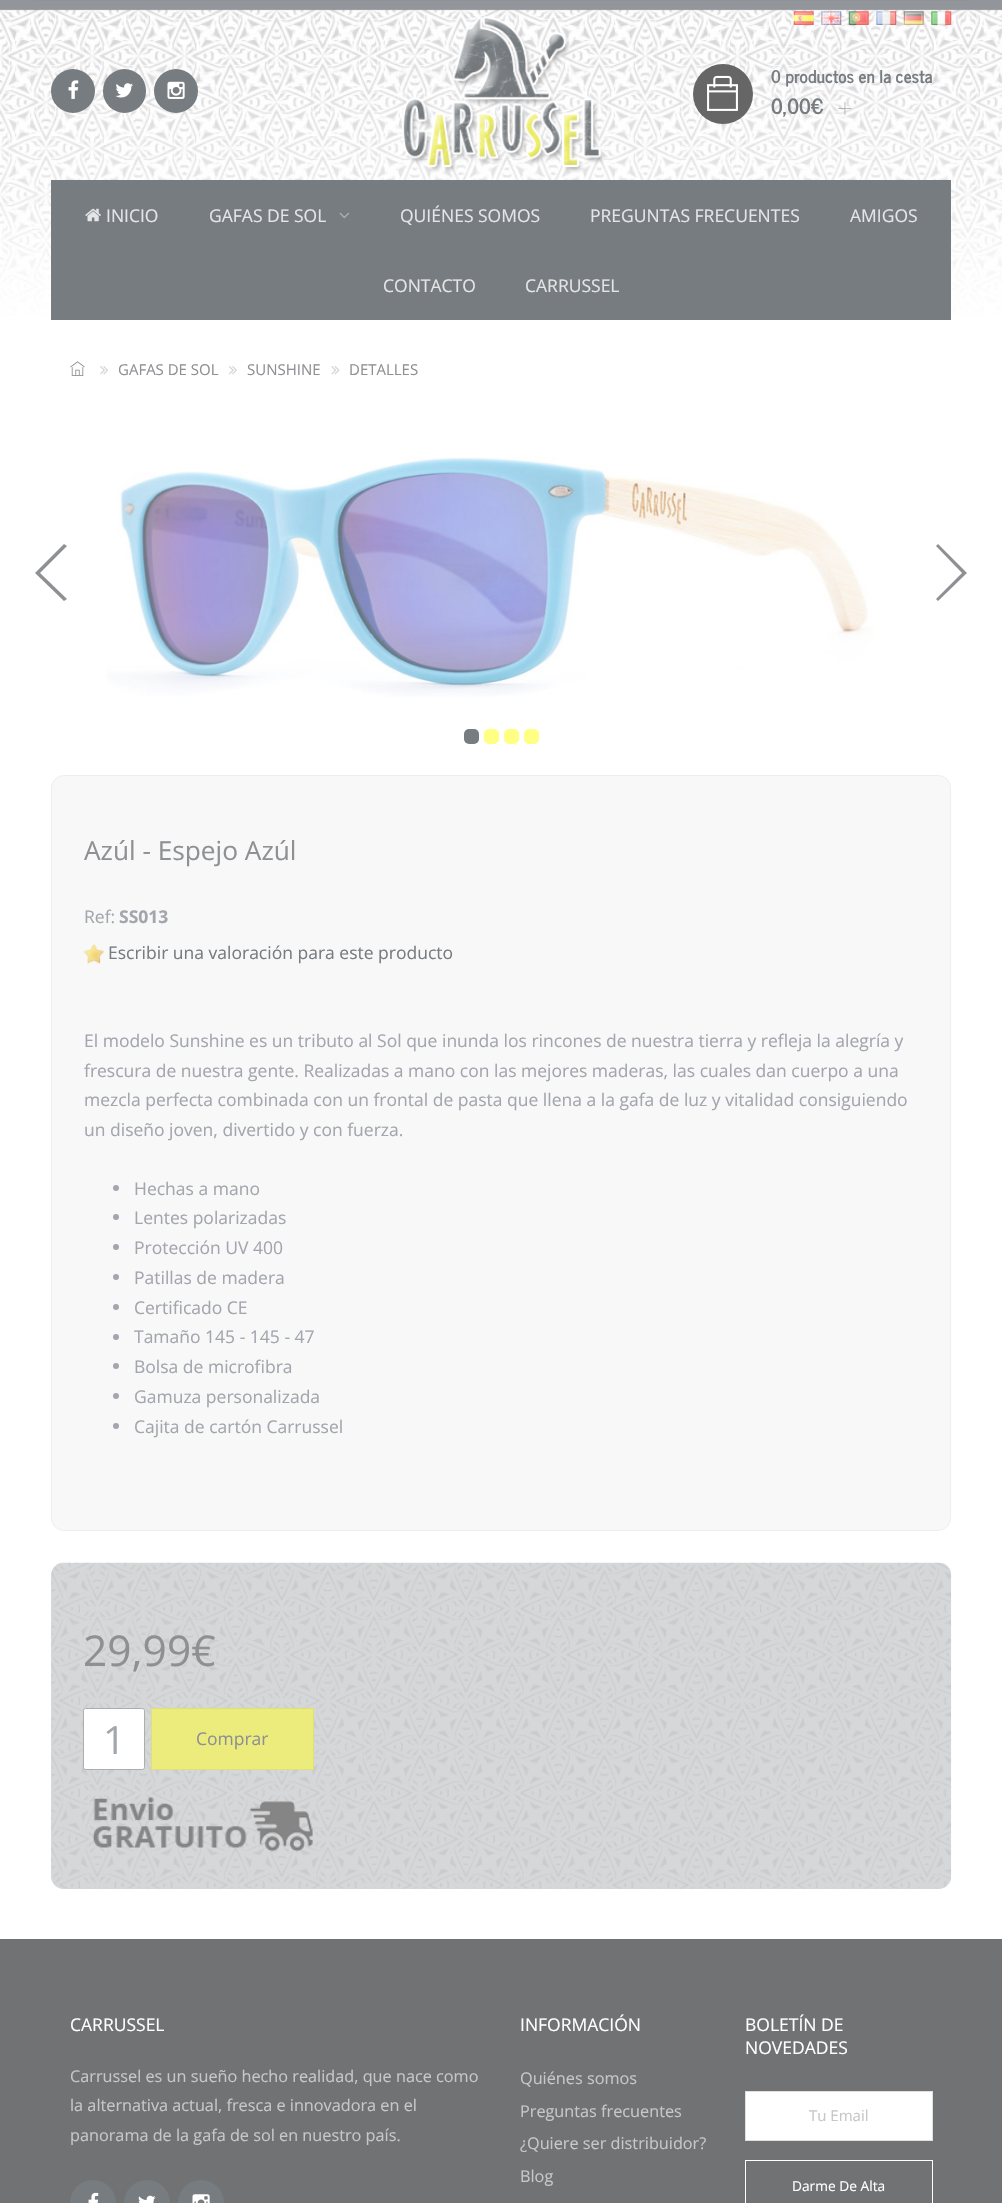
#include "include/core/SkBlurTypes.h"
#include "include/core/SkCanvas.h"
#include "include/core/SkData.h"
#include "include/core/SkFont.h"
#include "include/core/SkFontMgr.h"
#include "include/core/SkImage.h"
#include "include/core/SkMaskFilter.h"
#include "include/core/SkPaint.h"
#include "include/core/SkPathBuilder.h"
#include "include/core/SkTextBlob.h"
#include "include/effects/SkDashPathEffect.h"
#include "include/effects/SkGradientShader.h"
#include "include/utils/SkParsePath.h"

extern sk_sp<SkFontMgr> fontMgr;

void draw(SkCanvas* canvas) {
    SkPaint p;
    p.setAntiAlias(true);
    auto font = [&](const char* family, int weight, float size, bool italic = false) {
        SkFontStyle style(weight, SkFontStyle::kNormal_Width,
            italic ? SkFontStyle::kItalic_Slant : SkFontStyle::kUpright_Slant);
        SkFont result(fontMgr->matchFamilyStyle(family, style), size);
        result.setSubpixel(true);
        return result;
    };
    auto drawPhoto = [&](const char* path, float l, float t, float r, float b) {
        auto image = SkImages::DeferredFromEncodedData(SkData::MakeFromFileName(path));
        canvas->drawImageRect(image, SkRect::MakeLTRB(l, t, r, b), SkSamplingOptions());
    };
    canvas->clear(0xFFFFFFFF);
    drawPhoto("media/1.png", 0, 0, 1002, 316);
    p.setColor(0xFF8F9397);
    canvas->drawRect(SkRect::MakeLTRB(33, 0, 970, 1), p);
    p.setColor(0xFF777C80);
    canvas->drawCircle(73, 91, 22, p);
    drawPhoto("media/2.png", 68, 80, 79, 99);
    canvas->drawRoundRect(SkRect::MakeLTRB(103, 69, 146, 113), 21.5f, 21.5f, p);
    drawPhoto("media/3.png", 115, 83, 133, 98);
    canvas->drawCircle(176, 91, 22, p);
    drawPhoto("media/4.png", 167, 81, 185, 99);
    drawPhoto("media/5.png", 401, 16, 605, 173);
    drawPhoto("media/6.png", 793, 11, 814, 25);
    drawPhoto("media/7.png", 821, 11, 842, 25);
    drawPhoto("media/8.png", 848, 11, 869, 25);
    drawPhoto("media/9.png", 876, 11, 897, 25);
    drawPhoto("media/10.png", 903, 11, 924, 25);
    drawPhoto("media/11.png", 931, 11, 952, 25);
    p.setColor(0xFF666666);
    canvas->drawCircle(723, 94, 30, p);
    drawPhoto("media/12.png", 707, 75, 738, 111);
    auto font1 = font("News Cycle", 700, 17.5f);
    p.setColor(0xFF777C80);
    canvas->drawString("0 productos en la cesta", 771, 83, font1, p);
    auto font2 = font("News Cycle", 700, 21);
    canvas->drawString("0,00€", 771, 114, font2, p);
    drawPhoto("media/13.png", 838, 101, 852, 115);
    canvas->drawRect(SkRect::MakeLTRB(51, 180, 951, 320), p);
    drawPhoto("media/14.png", 85, 208, 101, 222);
    auto font3 = font("Open Sans", 400, 17.5f);
    p.setColor(0xFFE4E5E6);
    canvas->drawString("INICIO", 106, 222, font3, p);
    canvas->drawString("GAFAS DE SOL", 209, 222, font3, p);
    drawPhoto("media/15.png", 339, 212, 350, 219);
    {
        const struct { const char* s; float x, y; } items[] = {
            {"QUIÉNES SOMOS", 400, 222},
            {"PREGUNTAS FRECUENTES", 590, 222},
            {"AMIGOS", 850, 222},
            {"CONTACTO", 383, 292},
            {"CARRUSSEL", 525, 292},
        };
        for (auto [s, x, y] : items) {
            canvas->drawString(s, x, y, font3, p);
        }
    }
    drawPhoto("media/16.png", 70, 361, 85, 376);
    drawPhoto("media/17.png", 100, 366, 108, 375);
    auto font4 = font("Open Sans", 400, 15);
    p.setColor(0xFF8E9094);
    canvas->drawString("GAFAS DE SOL", 118, 375, font4, p);
    drawPhoto("media/18.png", 229, 366, 237, 375);
    canvas->drawString("SUNSHINE", 247, 375, font4, p);
    drawPhoto("media/19.png", 331, 366, 340, 375);
    canvas->drawString("DETALLES", 349, 375, font4, p);
    drawPhoto("media/20.png", 106, 457, 874, 697);
    canvas->drawPath(SkPathBuilder().moveTo(40, 573).lineTo(67, 599).lineTo(64, 601).lineTo(35, 573).lineTo(64, 544).lineTo(67, 546).close().detach(), p);
    canvas->drawPath(SkPathBuilder().moveTo(967, 573).lineTo(938, 601).lineTo(936, 599).lineTo(962, 573).lineTo(936, 546).lineTo(938, 544).close().detach(), p);
    p.setColor(0xFF777C80);
    canvas->drawRoundRect(SkRect::MakeLTRB(464, 729, 479, 744), 5, 5, p);
    p.setColor(0xFFFFFF81);
    canvas->drawRoundRect(SkRect::MakeLTRB(484, 729, 499, 744), 5, 5, p);
    canvas->drawRoundRect(SkRect::MakeLTRB(504, 729, 519, 744), 5, 5, p);
    canvas->drawRoundRect(SkRect::MakeLTRB(524, 729, 539, 744), 5, 5, p);
    p.setColor(0xFFF8F8F8);
    canvas->drawRoundRect(SkRect::MakeLTRB(51.5f, 775.5f, 950.5f, 1530.5f), 12.5f, 12.5f, p);
    p.setStyle(SkPaint::kStroke_Style);
    p.setStrokeWidth(1);
    p.setColor(0xFFEEEEEE);
    canvas->drawRoundRect(SkRect::MakeLTRB(51.5f, 775.5f, 950.5f, 1530.5f), 12.5f, 12.5f, p);
    auto font5 = font("Open Sans", 400, 26.25f);
    p.setStyle(SkPaint::kFill_Style);
    p.setColor(0xFF8E9094);
    canvas->drawString("Azúl - Espejo Azúl", 84, 860, font5, p);
    p.setColor(0xFFA3A6AD);
    canvas->drawString("Ref:", 84, 923, font3, p);
    auto font6 = font("Open Sans", 700, 17.5f);
    canvas->drawString("SS013", 119, 923, font6, p);
    drawPhoto("media/21.png", 83, 943, 104, 964);
    p.setColor(0xFF777C80);
    canvas->drawString("Escribir una valoración para este producto", 108, 959, font3, p);
    p.setColor(0xFFA3A6AD);
    {
        const struct { const char* s; float x, y; } items[] = {
            {"El modelo Sunshine es un tributo al Sol que inunda los rincones de nuestra tierra y refleja la alegría y", 84, 1047},
            {"frescura de nuestra gente. Realizadas a mano con las mejores maderas, las cuales dan cuerpo a una", 84, 1077},
            {"mezcla perfecta combinada con un frontal de pasta que llena a la gafa de luz y vitalidad consiguiendo", 84, 1106},
            {"un diseño joven, divertido y con fuerza.", 84, 1136},
        };
        for (auto [s, x, y] : items) {
            canvas->drawString(s, x, y, font3, p);
        }
    }
    canvas->drawCircle(116, 1188, 3, p);
    canvas->drawString("Hechas a mano", 134, 1195, font3, p);
    canvas->drawCircle(116, 1217, 3, p);
    canvas->drawString("Lentes polarizadas", 134, 1224, font3, p);
    canvas->drawCircle(116, 1247, 3, p);
    canvas->drawString("Protección UV 400", 134, 1254, font3, p);
    canvas->drawCircle(116, 1277, 3, p);
    canvas->drawString("Patillas de madera", 134, 1284, font3, p);
    canvas->drawCircle(116, 1307, 3, p);
    canvas->drawString("Certificado CE", 134, 1314, font3, p);
    canvas->drawCircle(116, 1337, 3, p);
    canvas->drawString("Tamaño 145 - 145 - 47", 134, 1343, font3, p);
    canvas->drawCircle(116, 1366, 3, p);
    canvas->drawString("Bolsa de microfibra", 134, 1373, font3, p);
    canvas->drawCircle(116, 1396, 3, p);
    canvas->drawString("Gamuza personalizada", 134, 1403, font3, p);
    canvas->drawCircle(116, 1426, 3, p);
    canvas->drawString("Cajita de cartón Carrussel", 134, 1433, font3, p);
    p.setColor(0xFFD6D7D9);
    canvas->drawRoundRect(SkRect::MakeLTRB(51, 1563, 951, 1889), 13, 13, p);
    drawPhoto("media/22.png", 51, 1562, 952, 1889);
    auto font7 = font("Open Sans", 400, 42.5f);
    p.setColor(0xFF8E9094);
    canvas->drawString("29,99€", 83, 1666, font7, p);
    p.setColor(0xFFFFFFFF);
    canvas->drawRoundRect(SkRect::MakeLTRB(83.5f, 1708.5f, 144.5f, 1769.5f), 2, 2, p);
    p.setStyle(SkPaint::kStroke_Style);
    p.setColor(0xFFADADAD);
    canvas->drawRoundRect(SkRect::MakeLTRB(83.5f, 1708.5f, 144.5f, 1769.5f), 2, 2, p);
    auto font8 = font("Open Sans", 400, 39);
    p.setStyle(SkPaint::kFill_Style);
    p.setColor(0xFFA3A6AD);
    canvas->drawString("1", 103, 1754, font8, p);
    p.setColor(0xFFECEC7C);
    canvas->drawRect(SkRect::MakeLTRB(151.5f, 1708.5f, 313.5f, 1769.5f), p);
    p.setStyle(SkPaint::kStroke_Style);
    p.setColor(0xFFDFDF7A);
    canvas->drawRect(SkRect::MakeLTRB(151.5f, 1708.5f, 313.5f, 1769.5f), p);
    p.setStyle(SkPaint::kFill_Style);
    p.setColor(0xFF8E9094);
    canvas->drawString("Comprar", 196, 1745, font3, p);
    drawPhoto("media/23.png", 92, 1797, 313, 1852);
    p.setColor(0xFF717273);
    canvas->drawRect(SkRect::MakeLTRB(0, 1939, 1002, 2203), p);
    p.setColor(0xFFFFFFFF);
    canvas->drawString("CARRUSSEL", 70, 2031, font3, p);
    auto font9 = font("Open Sans", 400, 16.25f);
    p.setColor(0xFFC7C7C7);
    {
        const struct { const char* s; float x, y; } items[] = {
            {"Carrussel es un sueño hecho realidad, que nace como", 70, 2082},
            {"la alternativa actual, fresca e innovadora en el", 70, 2111},
            {"panorama de la gafa de sol en nuestro país.", 70, 2141},
        };
        for (auto [s, x, y] : items) {
            canvas->drawString(s, x, y, font9, p);
        }
    }
    p.setColor(0xFF777C80);
    canvas->drawCircle(93, 2203, 23, p);
    drawPhoto("media/24.png", 88, 2192, 99, 2203);
    canvas->drawCircle(147, 2203, 23, p);
    drawPhoto("media/25.png", 138, 2195, 156, 2203);
    canvas->drawCircle(201, 2203, 23, p);
    drawPhoto("media/26.png", 192, 2194, 210, 2203);
    p.setColor(0xFFFFFFFF);
    canvas->drawString("INFORMACIÓN", 520, 2031, font3, p);
    p.setColor(0xFFC7C7C7);
    {
        const struct { const char* s; float x, y; } items[] = {
            {"Quiénes somos", 520, 2084},
            {"Preguntas frecuentes", 520, 2117},
            {"¿Quiere ser distribuidor?", 520, 2149},
            {"Blog", 520, 2182},
        };
        for (auto [s, x, y] : items) {
            canvas->drawString(s, x, y, font9, p);
        }
    }
    p.setColor(0xFFFFFFFF);
    canvas->drawString("BOLETÍN DE", 745, 2031, font3, p);
    canvas->drawString("NOVEDADES", 745, 2054, font3, p);
    canvas->drawRect(SkRect::MakeLTRB(745.5f, 2091.5f, 932.5f, 2140.5f), p);
    p.setStyle(SkPaint::kStroke_Style);
    p.setColor(0xFFE0E0E0);
    canvas->drawRect(SkRect::MakeLTRB(745.5f, 2091.5f, 932.5f, 2140.5f), p);
    p.setStyle(SkPaint::kFill_Style);
    p.setColor(0xFFC7C7C7);
    canvas->drawString("Tu Email", 809, 2121, font4, p);
    p.setStyle(SkPaint::kStroke_Style);
    p.setColor(0xFFFFFFFF);
    canvas->drawRect(SkRect::MakeLTRB(745.5f, 2160.5f, 932.5f, 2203.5f), p);
    auto font10 = font("Open Sans", 400, 13.75f);
    p.setStyle(SkPaint::kFill_Style);
    canvas->drawString("Darme De Alta", 792, 2191, font10, p);
}
